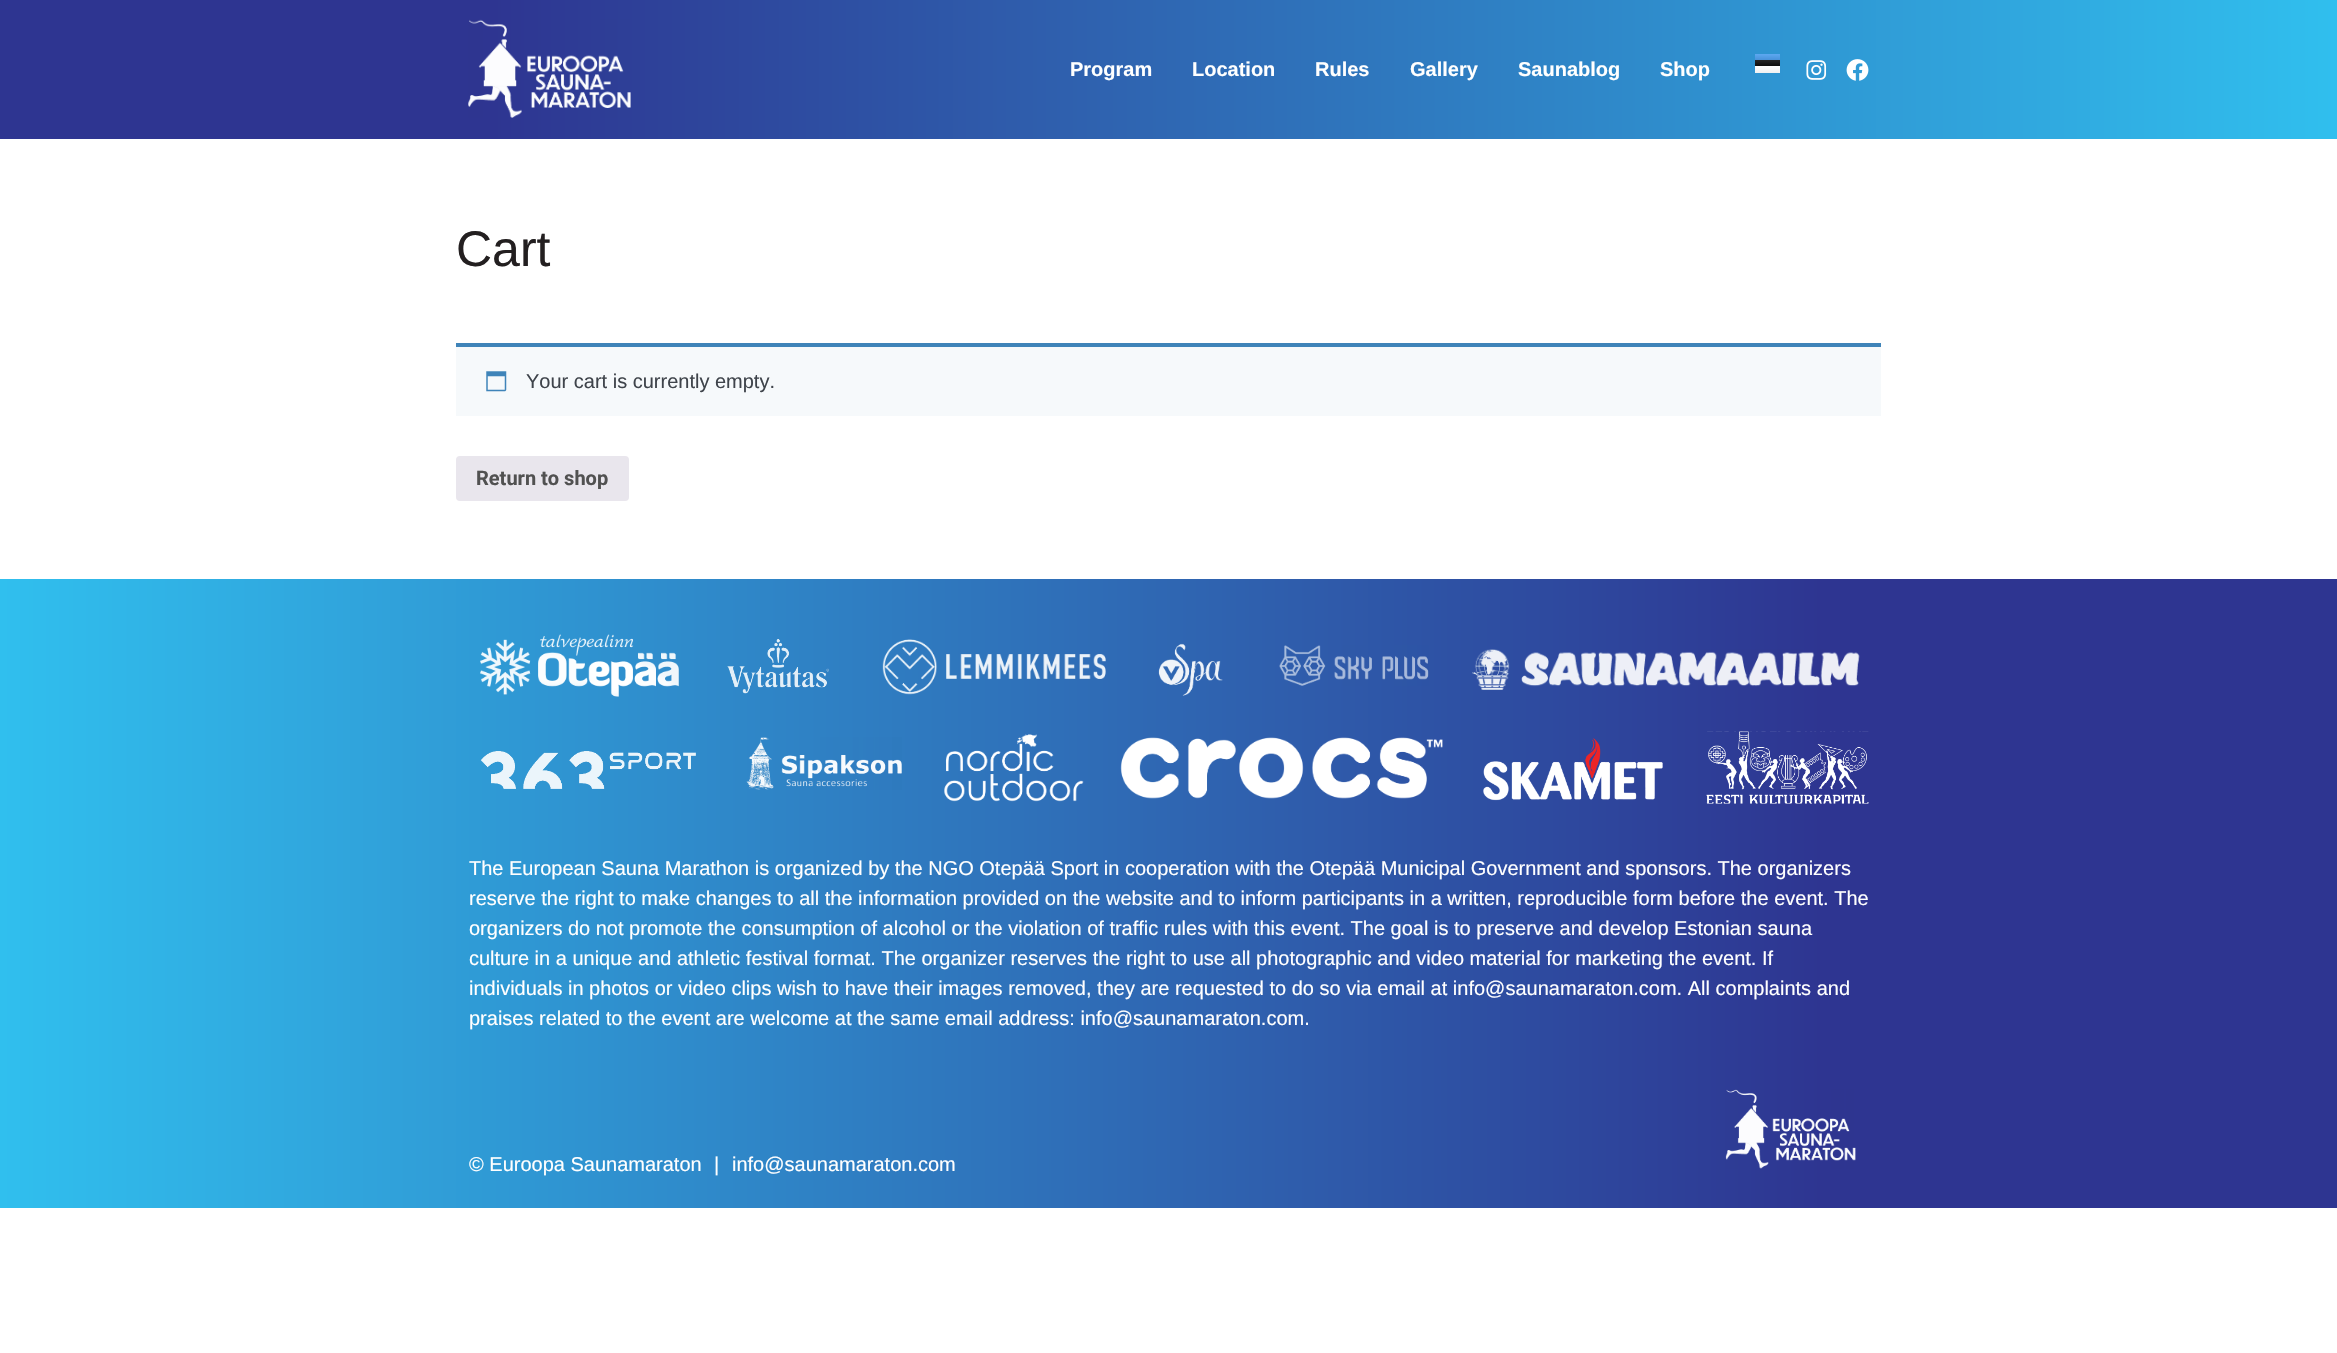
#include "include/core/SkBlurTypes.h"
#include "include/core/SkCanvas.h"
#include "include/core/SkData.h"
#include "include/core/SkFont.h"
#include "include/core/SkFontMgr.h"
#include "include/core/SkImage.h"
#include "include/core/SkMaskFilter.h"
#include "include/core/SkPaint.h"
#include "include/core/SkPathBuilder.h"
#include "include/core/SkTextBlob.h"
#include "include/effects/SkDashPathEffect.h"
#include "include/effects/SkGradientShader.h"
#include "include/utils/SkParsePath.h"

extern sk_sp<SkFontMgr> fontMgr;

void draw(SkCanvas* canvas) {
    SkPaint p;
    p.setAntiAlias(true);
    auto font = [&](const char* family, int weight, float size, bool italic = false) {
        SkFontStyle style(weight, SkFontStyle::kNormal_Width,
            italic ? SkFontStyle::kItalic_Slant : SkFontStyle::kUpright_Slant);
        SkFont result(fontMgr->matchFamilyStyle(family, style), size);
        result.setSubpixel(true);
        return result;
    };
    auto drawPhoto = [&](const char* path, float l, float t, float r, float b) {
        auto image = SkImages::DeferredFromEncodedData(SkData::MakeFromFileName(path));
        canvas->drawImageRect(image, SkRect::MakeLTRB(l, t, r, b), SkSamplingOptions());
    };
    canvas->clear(0xFFFFFFFF);
    {
        const SkColor colors[] = {0xFF2E3591, 0xFF30BFEE};
        const float stops[] = {0.21f, 1};
        const SkPoint ends[] = {{0, 69}, {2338, 69}};
        p.setShader(SkGradientShader::MakeLinear(ends, colors, stops, 2, SkTileMode::kClamp));
        p.setAlpha(255);
    }
    canvas->drawRect(SkRect::MakeLTRB(0, 0, 2337, 139), p);
    drawPhoto("media/1.png", 468, 19, 631, 118);
    auto font1 = font("Liberation Sans", 700, 20);
    p.setShader(nullptr);
    p.setColor(0xFFFFFFFF);
    {
        const struct { const char* s; float x, y; } items[] = {
            {"Program", 1070, 76},
            {"Location", 1192, 76},
            {"Rules", 1315, 76},
            {"Gallery", 1410, 76},
            {"Saunablog", 1518, 76},
            {"Shop", 1660, 76},
        };
        for (auto [s, x, y] : items) {
            canvas->drawString(s, x, y, font1, p);
        }
    }
    {
        const SkColor colors[] = {0xFF5DA8F1, 0xFF4892DA};
        const float stops[] = {0, 1};
        const SkPoint ends[] = {{1768, 54}, {1768, 60}};
        p.setShader(SkGradientShader::MakeLinear(ends, colors, stops, 2, SkTileMode::kClamp));
        p.setAlpha(255);
    }
    canvas->drawRect(SkRect::MakeLTRB(1755, 54, 1780, 60), p);
    {
        const SkColor colors[] = {0xFF262626, 0xFF0D0D0D};
        const float stops[] = {0, 1};
        const SkPoint ends[] = {{1768, 60}, {1768, 66}};
        p.setShader(SkGradientShader::MakeLinear(ends, colors, stops, 2, SkTileMode::kClamp));
        p.setAlpha(255);
    }
    canvas->drawRect(SkRect::MakeLTRB(1755, 60, 1780, 66), p);
    {
        const SkColor colors[] = {0xFFFFFFFF, 0xFFF0F0F0};
        const float stops[] = {0, 1};
        const SkPoint ends[] = {{1768, 66}, {1768, 73}};
        p.setShader(SkGradientShader::MakeLinear(ends, colors, stops, 2, SkTileMode::kClamp));
        p.setAlpha(255);
    }
    canvas->drawRect(SkRect::MakeLTRB(1755, 66, 1780, 73), p);
    drawPhoto("media/2.png", 1806, 60, 1827, 80);
    drawPhoto("media/3.png", 1846, 59, 1869, 81);
    auto font2 = font("Liberation Sans", 400, 50);
    p.setShader(nullptr);
    p.setColor(0xFF231F20);
    canvas->drawString("Cart", 456, 266, font2, p);
    p.setColor(0xFFF6F9FB);
    canvas->drawRect(SkRect::MakeLTRB(456, 347, 1881, 416), p);
    p.setColor(0xFF3F84B9);
    canvas->drawRect(SkRect::MakeLTRB(456, 343, 1881, 347), p);
    drawPhoto("media/4.png", 486, 371, 507, 392);
    auto font3 = font("Liberation Sans", 400, 20);
    p.setColor(0xFF3F444B);
    canvas->drawString("Your cart is currently empty.", 526, 388, font3, p);
    p.setColor(0xFFE9E6ED);
    canvas->drawRoundRect(SkRect::MakeLTRB(456, 456, 629, 501), 4, 4, p);
    auto font4 = font("Roboto", 700, 20);
    p.setColor(0xFF515151);
    canvas->drawString("Return to shop", 476, 485, font4, p);
    {
        const SkColor colors[] = {0xFF30BFEE, 0xFF2E3591};
        const float stops[] = {0, 0.78f};
        const SkPoint ends[] = {{0, 893}, {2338, 893}};
        p.setShader(SkGradientShader::MakeLinear(ends, colors, stops, 2, SkTileMode::kClamp));
        p.setAlpha(255);
    }
    canvas->drawRect(SkRect::MakeLTRB(0, 579, 2337, 1208), p);
    drawPhoto("media/5.png", 480, 634, 679, 697);
    drawPhoto("media/6.png", 727, 639, 829, 694);
    drawPhoto("media/7.png", 882, 639, 1106, 695);
    drawPhoto("media/8.png", 1158, 643, 1223, 696);
    drawPhoto("media/9.png", 1279, 645, 1429, 686);
    drawPhoto("media/10.png", 1472, 649, 1860, 690);
    drawPhoto("media/11.png", 480, 751, 696, 789);
    drawPhoto("media/12.png", 746, 737, 902, 790);
    drawPhoto("media/13.png", 944, 734, 1084, 802);
    drawPhoto("media/14.png", 1120, 737, 1443, 799);
    drawPhoto("media/15.png", 1483, 738, 1663, 801);
    drawPhoto("media/16.png", 1706, 731, 1869, 804);
    p.setShader(nullptr);
    p.setColor(0xFFFFFFFF);
    {
        const struct { const char* s; float x, y; } items[] = {
            {"The European Sauna Marathon is organized by the NGO Otepää Sport in cooperation with the Otepää Municipal Government and sponsors. The organizers", 469, 875},
            {"reserve the right to make changes to all the information provided on the website and to inform participants in a written, reproducible form before the event. The", 469, 905},
            {"organizers do not promote the consumption of alcohol or the violation of traffic rules with this event. The goal is to preserve and develop Estonian sauna", 469, 935},
            {"culture in a unique and athletic festival format. The organizer reserves the right to use all photographic and video material for marketing the event. If", 469, 965},
            {"individuals in photos or video clips wish to have their images removed, they are requested to do so via email at info@saunamaraton.com. All complaints and", 469, 995},
            {"praises related to the event are welcome at the same email address: info@saunamaraton.com.", 469, 1025},
            {"© Euroopa Saunamaraton", 469, 1171},
            {"|", 714, 1171},
            {"info@saunamaraton.com", 732, 1171},
        };
        for (auto [s, x, y] : items) {
            canvas->drawString(s, x, y, font3, p);
        }
    }
    drawPhoto("media/17.png", 1725, 1089, 1856, 1169);
}
